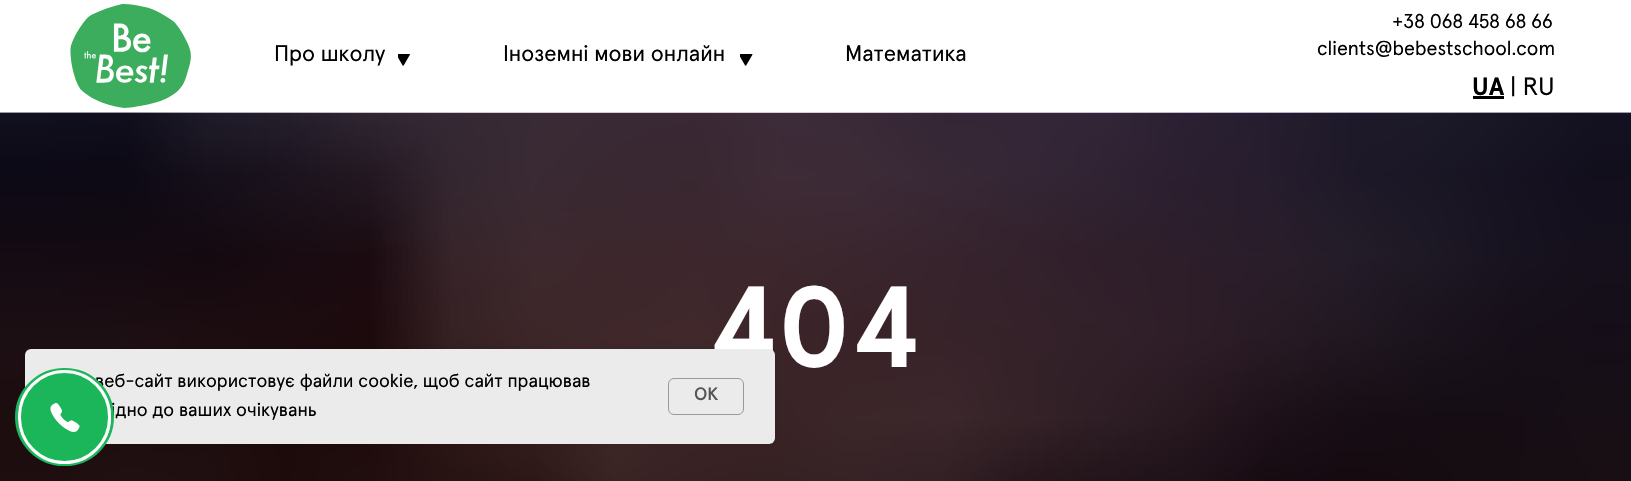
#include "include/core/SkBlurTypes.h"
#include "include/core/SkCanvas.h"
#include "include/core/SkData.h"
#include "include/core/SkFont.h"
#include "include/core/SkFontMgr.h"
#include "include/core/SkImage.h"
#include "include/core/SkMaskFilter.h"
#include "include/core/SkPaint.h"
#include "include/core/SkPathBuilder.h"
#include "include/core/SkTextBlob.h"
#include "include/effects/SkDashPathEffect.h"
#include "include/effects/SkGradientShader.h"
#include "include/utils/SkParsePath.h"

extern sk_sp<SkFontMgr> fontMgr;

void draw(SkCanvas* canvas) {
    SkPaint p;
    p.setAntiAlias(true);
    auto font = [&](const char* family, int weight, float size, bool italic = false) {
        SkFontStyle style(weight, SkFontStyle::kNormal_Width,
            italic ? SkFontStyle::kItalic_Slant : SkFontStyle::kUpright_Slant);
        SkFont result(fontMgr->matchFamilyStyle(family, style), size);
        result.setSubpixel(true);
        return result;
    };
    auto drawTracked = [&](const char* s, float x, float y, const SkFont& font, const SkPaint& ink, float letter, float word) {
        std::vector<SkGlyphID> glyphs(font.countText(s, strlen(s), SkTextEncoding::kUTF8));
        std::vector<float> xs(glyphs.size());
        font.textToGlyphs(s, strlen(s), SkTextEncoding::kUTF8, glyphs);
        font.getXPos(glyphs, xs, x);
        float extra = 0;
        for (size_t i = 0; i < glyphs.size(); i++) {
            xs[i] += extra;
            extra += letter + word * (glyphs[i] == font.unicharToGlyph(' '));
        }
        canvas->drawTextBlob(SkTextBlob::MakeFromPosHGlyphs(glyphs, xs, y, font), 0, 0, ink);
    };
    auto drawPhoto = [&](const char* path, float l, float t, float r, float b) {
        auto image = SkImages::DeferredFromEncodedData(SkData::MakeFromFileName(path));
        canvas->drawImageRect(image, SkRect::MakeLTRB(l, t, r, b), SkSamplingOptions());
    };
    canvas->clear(0xFFFFFFFF);
    drawPhoto("media/5.png", 0, 112, 1631, 481);
    p.setColor(0x1A000000);
    p.setMaskFilter(SkMaskFilter::MakeBlur(kNormal_SkBlurStyle, 3));
    canvas->drawRoundRect(SkRect::MakeLTRB(25, 349, 775, 444), 6, 6, p);
    p.setMaskFilter(nullptr);
    auto font1 = font("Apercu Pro", 700, 115);
    p.setColor(0xFFFFFFFF);
    drawTracked("404", 710, 367, font1, p, 3, 0);
    p.setColor(0xFFEBEBEB);
    canvas->drawRoundRect(SkRect::MakeLTRB(25, 349, 775, 444), 6, 6, p);
    auto font2 = font("Apercu Pro", 400, 18.75f);
    p.setColor(0xFF000000);
    canvas->drawString("веб-сайт використовує файли cookie, щоб сайт працював", 95, 387, font2, p);
    canvas->drawString("ідно до ваших очікувань", 111, 416, font2, p);
    p.setStyle(SkPaint::kStroke_Style);
    p.setStrokeWidth(3);
    p.setColor(0xFF1CB65A);
    canvas->drawRoundRect(SkRect::MakeLTRB(16.5f, 369.5f, 112.5f, 464.5f), 47.5f, 47.5f, p);
    p.setStyle(SkPaint::kFill_Style);
    canvas->drawRoundRect(SkRect::MakeLTRB(19.5f, 371.5f, 109.5f, 462.5f), 45, 45, p);
    p.setStyle(SkPaint::kStroke_Style);
    p.setColor(0xFFFFFFFF);
    canvas->drawRoundRect(SkRect::MakeLTRB(19.5f, 371.5f, 109.5f, 462.5f), 45, 45, p);
    drawPhoto("media/1.png", 50, 403, 80, 433);
    drawPhoto("media/2.png", 70, 4, 191, 108);
    auto font3 = font("Apercu Pro", 400, 20);
    p.setStyle(SkPaint::kFill_Style);
    p.setColor(0xFF000000);
    canvas->drawString("+38 068 458 68 66", 1392, 28, font3, p);
    auto font4 = font("Apercu Pro", 400, 22.5f);
    canvas->drawString("Про школу", 274, 61, font4, p);
    drawPhoto("media/3.png", 398, 54, 410, 66);
    canvas->drawString("Іноземні мови онлайн", 503, 61, font4, p);
    drawPhoto("media/4.png", 740, 54, 753, 66);
    canvas->drawString("Математика", 845, 61, font4, p);
    canvas->drawString("clients@bebestschool.com", 1317, 55, font3, p);
    auto font5 = font("Apercu Pro", 700, 25);
    canvas->drawString("UA", 1472, 95, font5, p);
    canvas->drawRect(SkRect::MakeLTRB(1473, 96, 1504, 99), p);
    auto font6 = font("Apercu Pro", 400, 25);
    canvas->drawString("| RU", 1510, 95, font6, p);
    p.setStyle(SkPaint::kStroke_Style);
    p.setStrokeWidth(1);
    p.setColor(0xFF999999);
    canvas->drawRoundRect(SkRect::MakeLTRB(668.5f, 378.5f, 743.5f, 414.5f), 5.5f, 5.5f, p);
    auto font7 = font("Apercu Pro", 500, 18);
    p.setStyle(SkPaint::kFill_Style);
    p.setColor(0xFF555555);
    canvas->drawString("OK", 694, 400, font7, p);
}
